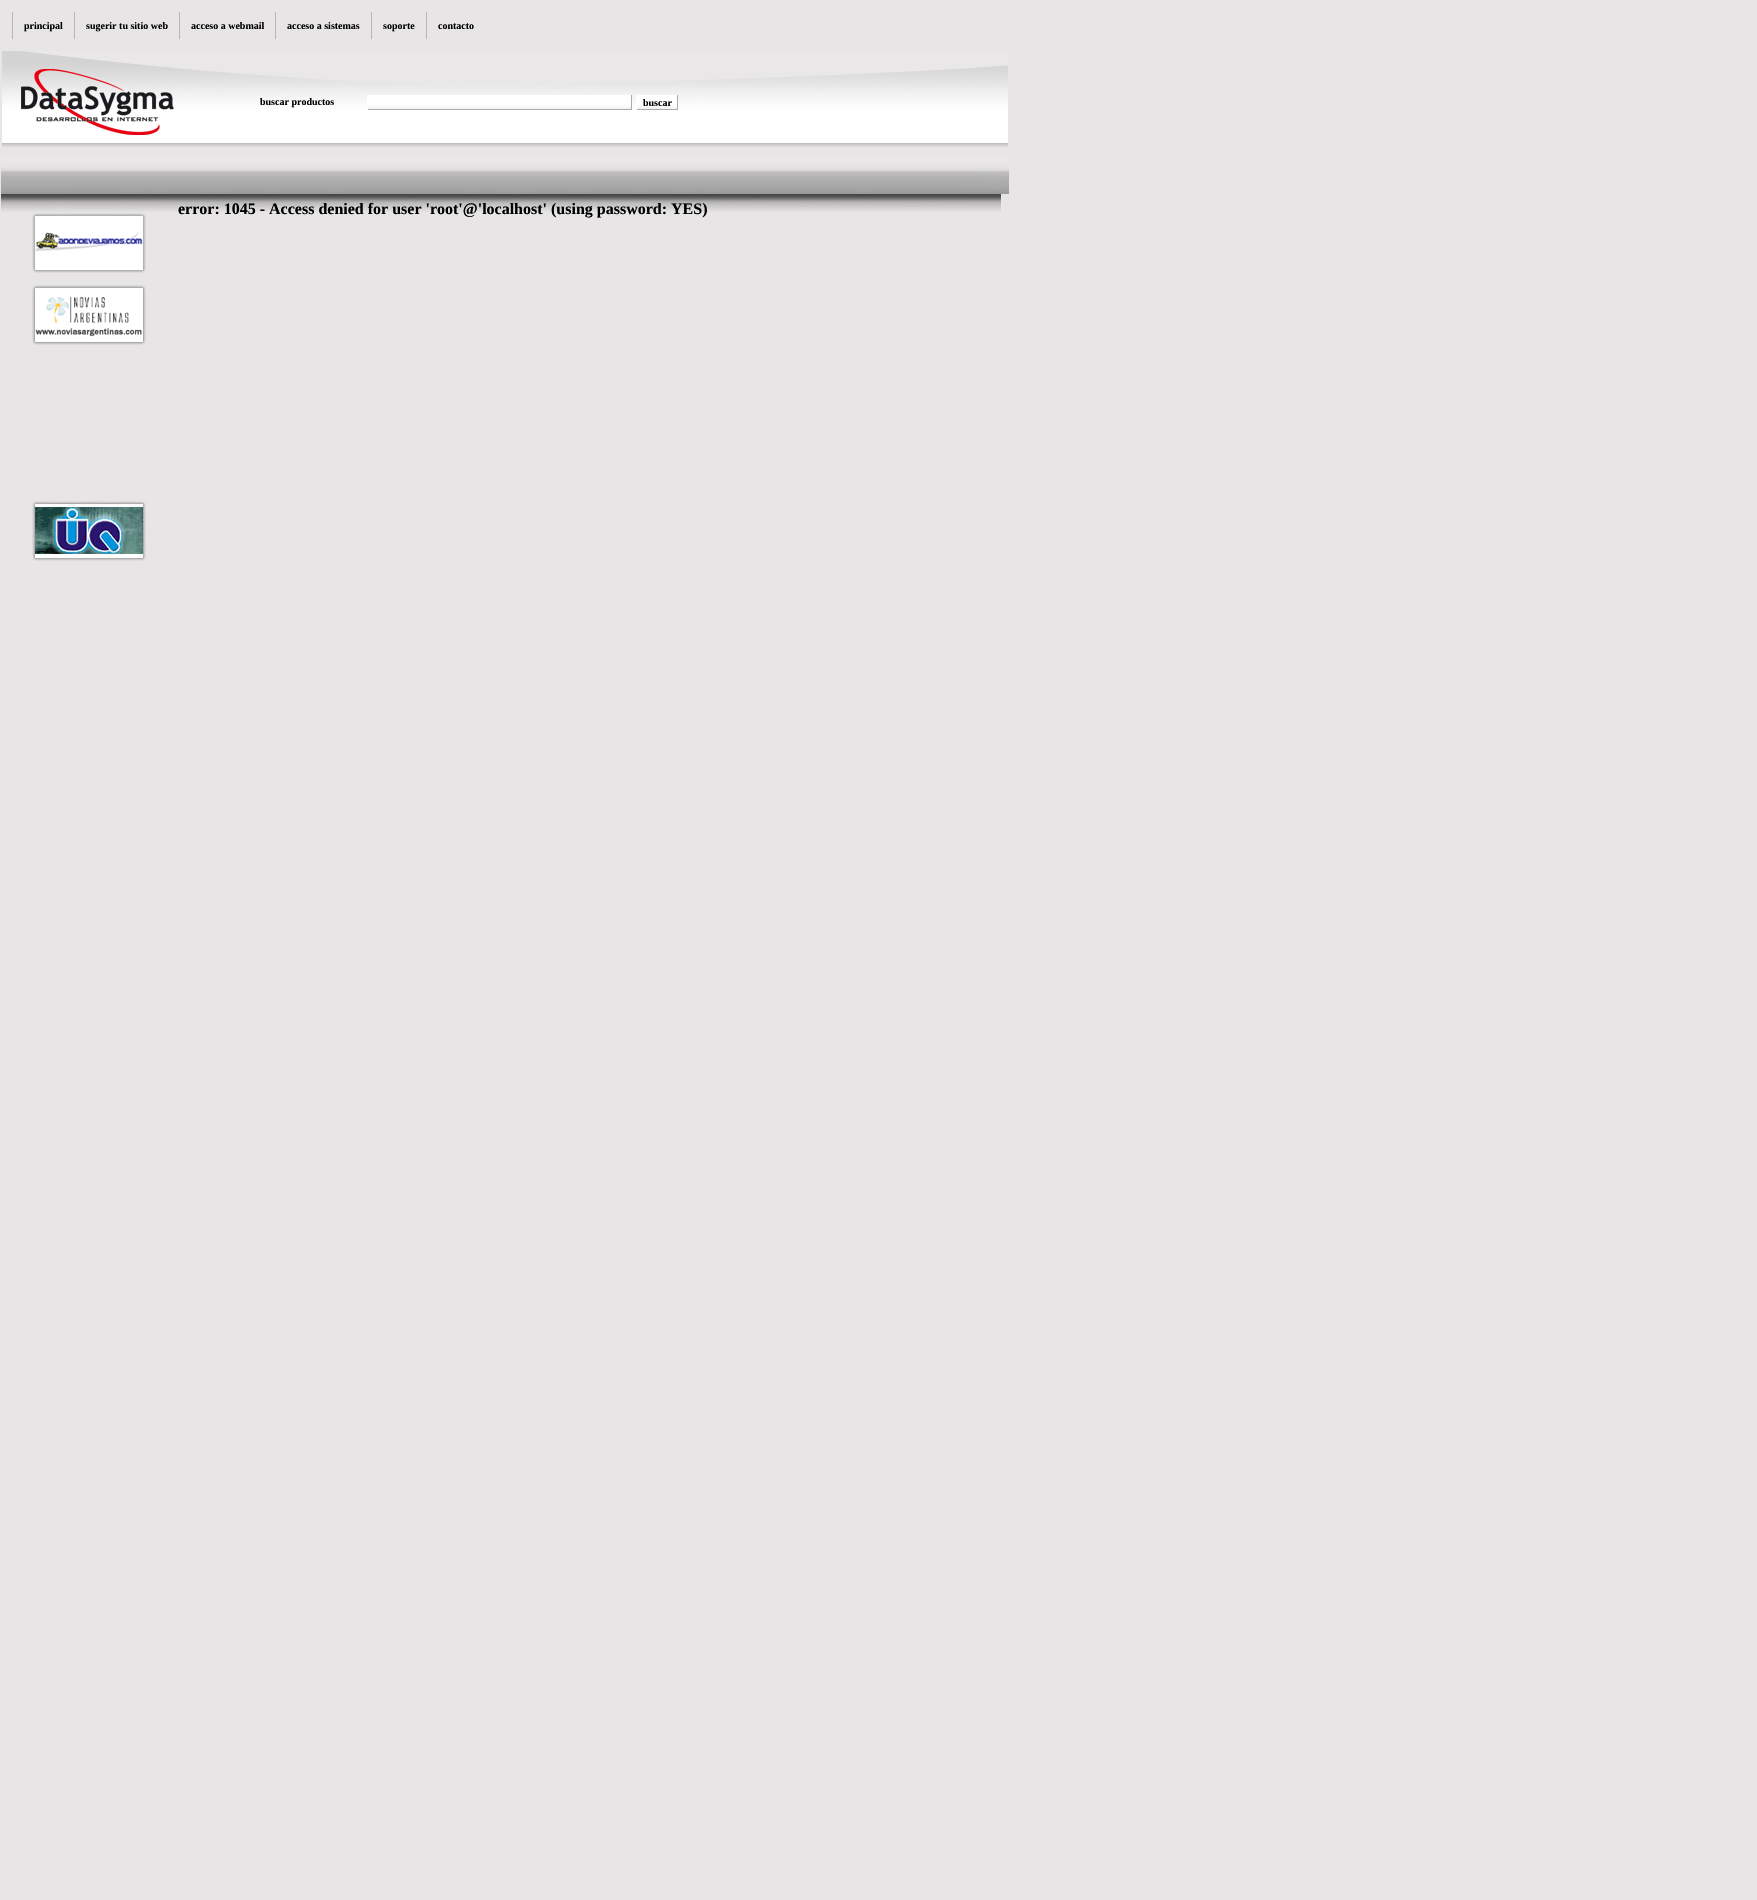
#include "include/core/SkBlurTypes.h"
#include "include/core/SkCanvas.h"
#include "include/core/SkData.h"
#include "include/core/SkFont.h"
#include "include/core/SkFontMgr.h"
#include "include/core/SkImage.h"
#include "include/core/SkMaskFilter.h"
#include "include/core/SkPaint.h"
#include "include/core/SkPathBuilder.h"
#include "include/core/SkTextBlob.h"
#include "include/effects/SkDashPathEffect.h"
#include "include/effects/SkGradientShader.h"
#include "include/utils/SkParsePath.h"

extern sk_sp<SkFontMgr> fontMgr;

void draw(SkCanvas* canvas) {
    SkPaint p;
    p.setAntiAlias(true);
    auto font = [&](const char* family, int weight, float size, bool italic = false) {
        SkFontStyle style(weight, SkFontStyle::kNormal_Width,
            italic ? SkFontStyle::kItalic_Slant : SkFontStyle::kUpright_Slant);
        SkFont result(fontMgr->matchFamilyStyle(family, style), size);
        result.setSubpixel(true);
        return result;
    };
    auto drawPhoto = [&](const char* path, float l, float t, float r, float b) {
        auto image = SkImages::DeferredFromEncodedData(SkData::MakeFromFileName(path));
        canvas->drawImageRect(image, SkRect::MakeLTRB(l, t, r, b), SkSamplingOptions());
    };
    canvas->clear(0xFFE7E5E6);
    p.setColor(0xFFB8B8B8);
    canvas->drawRect(SkRect::MakeLTRB(12, 12, 13, 39), p);
    auto font1 = font("Liberation Serif", 700, 10);
    p.setColor(0xFF000000);
    canvas->drawString("principal", 24, 29, font1, p);
    p.setColor(0xFFB8B8B8);
    canvas->drawRect(SkRect::MakeLTRB(74, 12, 75, 39), p);
    p.setColor(0xFF000000);
    canvas->drawString("sugerir tu sitio web", 86, 29, font1, p);
    p.setColor(0xFFB8B8B8);
    canvas->drawRect(SkRect::MakeLTRB(179, 12, 180, 39), p);
    p.setColor(0xFF000000);
    canvas->drawString("acceso a webmail", 191, 29, font1, p);
    p.setColor(0xFFB8B8B8);
    canvas->drawRect(SkRect::MakeLTRB(275, 12, 276, 39), p);
    p.setColor(0xFF000000);
    canvas->drawString("acceso a sistemas", 287, 29, font1, p);
    p.setColor(0xFFB8B8B8);
    canvas->drawRect(SkRect::MakeLTRB(371, 12, 372, 39), p);
    p.setColor(0xFF000000);
    canvas->drawString("soporte", 383, 29, font1, p);
    p.setColor(0xFFB8B8B8);
    canvas->drawRect(SkRect::MakeLTRB(426, 12, 427, 39), p);
    p.setColor(0xFF000000);
    canvas->drawString("contacto", 438, 29, font1, p);
    drawPhoto("media/1.png", 2, 51, 1008, 148);
    canvas->drawString("buscar productos", 260, 105, font1, p);
    drawPhoto("media/2.png", 368, 96, 631, 109);
    {
        const struct { float l, t, r, b; SkColor color; } items[] = {
            {367, 95, 632, 96, 0xFFFFFFFF},
            {631, 95, 632, 110, 0xFFAAAAAA},
            {367, 109, 632, 110, 0xFFAAAAAA},
            {367, 95, 368, 110, 0xFFFFFFFF},
        };
        for (auto [l, t, r, b, color] : items) {
            p.setColor(color);
            canvas->drawRect(SkRect::MakeLTRB(l, t, r, b), p);
        }
    }
    drawPhoto("media/3.png", 637, 96, 677, 109);
    {
        const struct { float l, t, r, b; SkColor color; } items[] = {
            {636, 95, 678, 96, 0xFFFFFFFF},
            {677, 95, 678, 110, 0xFFAAAAAA},
            {636, 109, 678, 110, 0xFFAAAAAA},
            {636, 95, 637, 110, 0xFFFFFFFF},
        };
        for (auto [l, t, r, b, color] : items) {
            p.setColor(color);
            canvas->drawRect(SkRect::MakeLTRB(l, t, r, b), p);
        }
    }
    p.setColor(0xFF000000);
    canvas->drawString("buscar", 643, 106, font1, p);
    drawPhoto("media/4.png", 1, 154, 1009, 194);
    drawPhoto("media/5.png", 1, 194, 1001, 212);
    auto font2 = font("Liberation Serif", 700, 16);
    canvas->drawString("error: 1045 - Access denied for user 'root'@'localhost' (using password: YES)", 178, 214, font2, p);
    drawPhoto("media/6.png", 32, 213, 146, 273);
    drawPhoto("media/7.png", 32, 285, 146, 345);
    drawPhoto("media/8.png", 28, 501, 148, 561);
}
